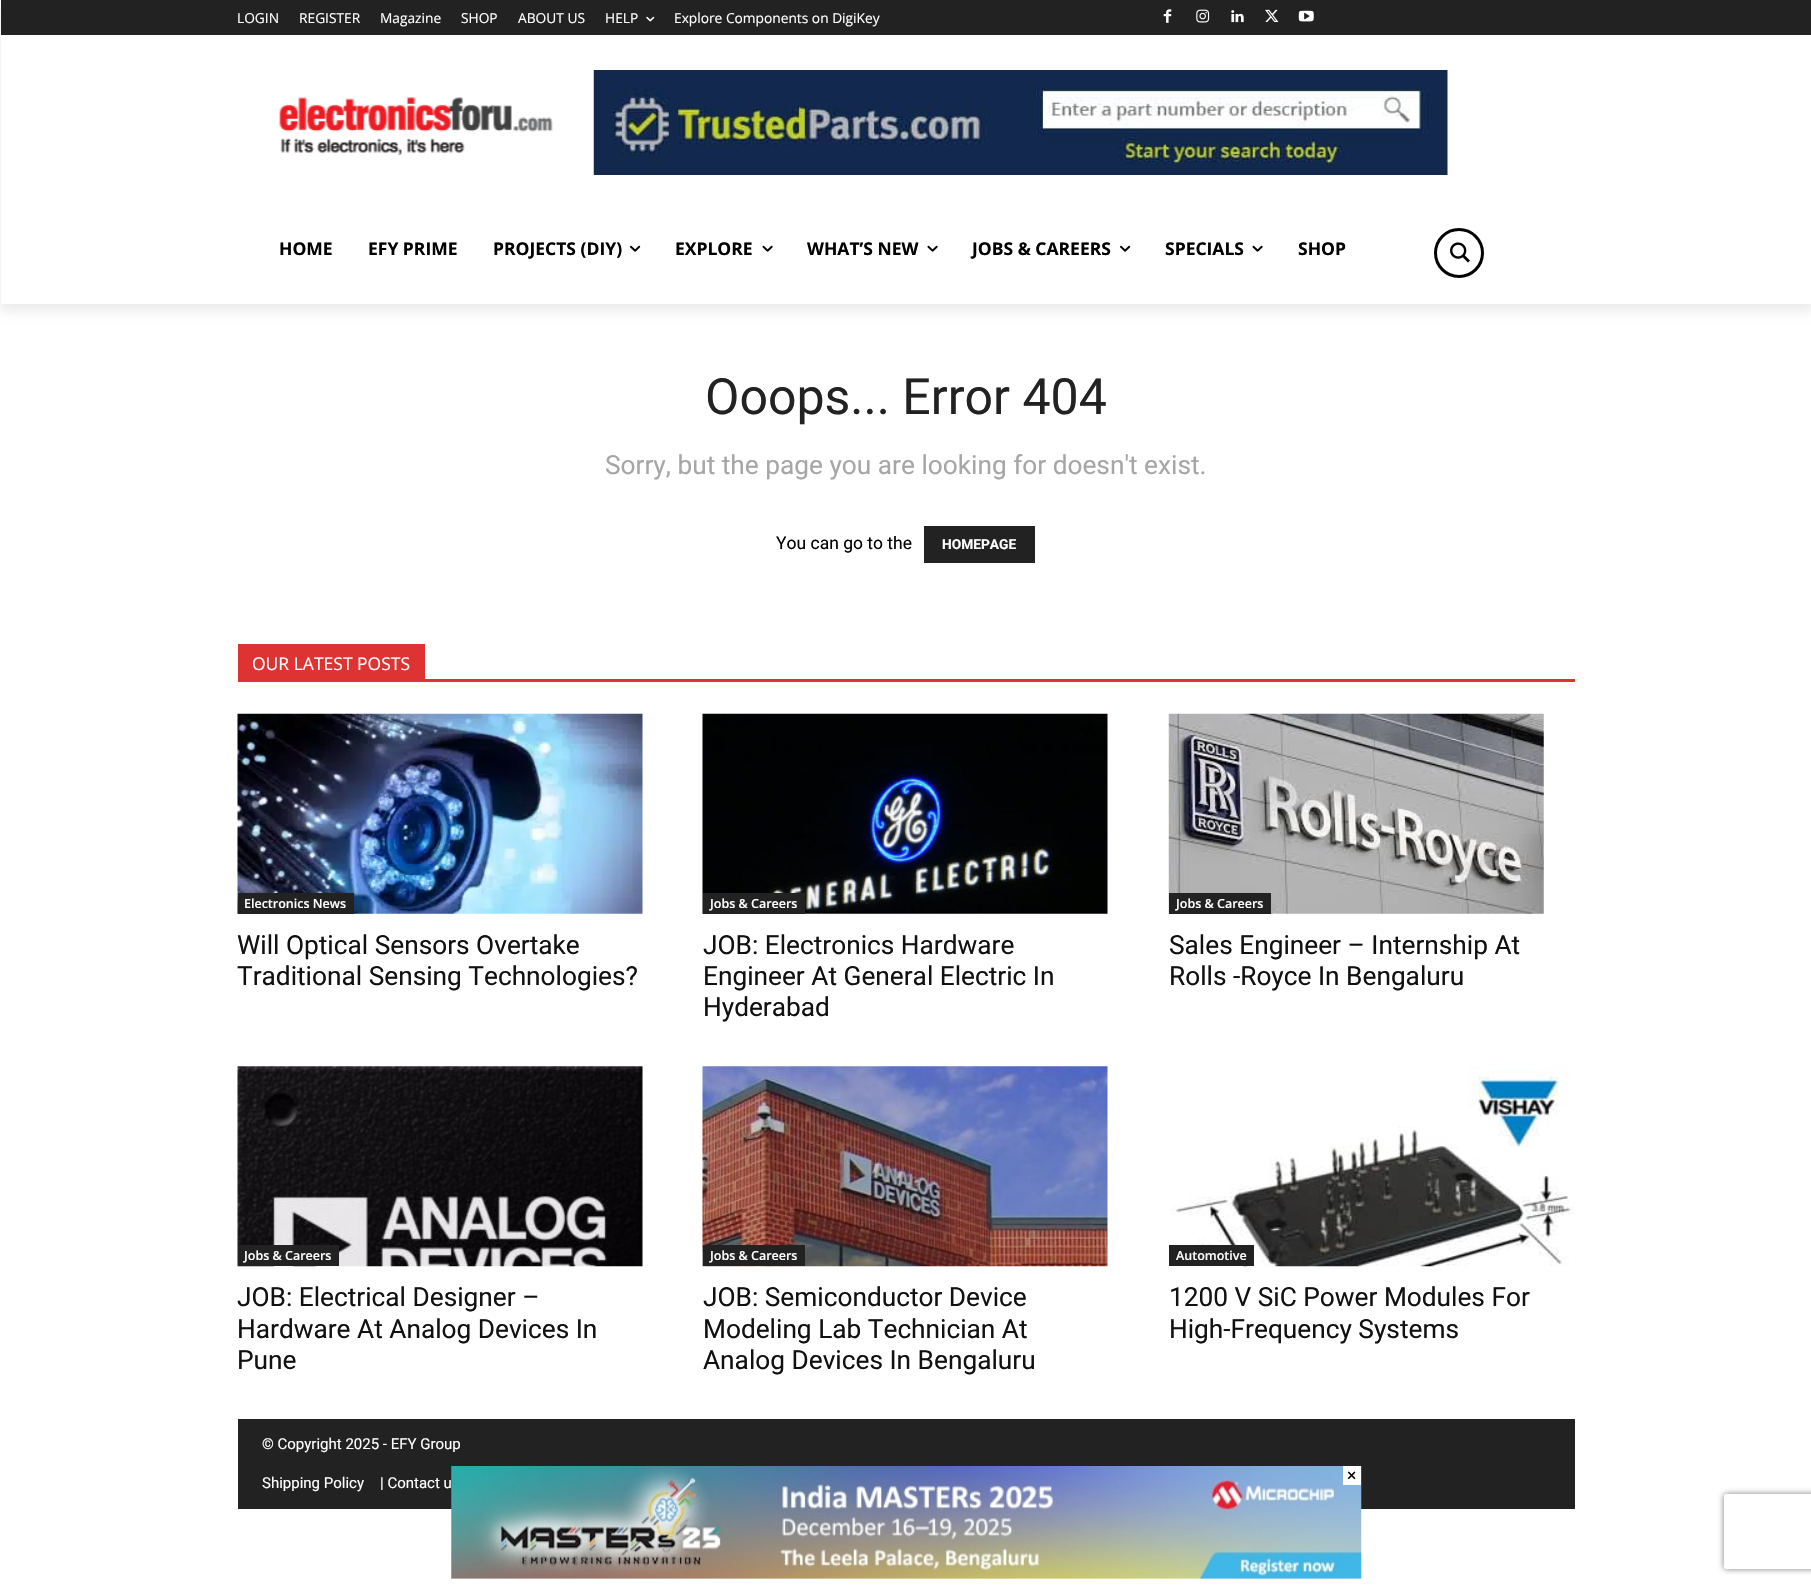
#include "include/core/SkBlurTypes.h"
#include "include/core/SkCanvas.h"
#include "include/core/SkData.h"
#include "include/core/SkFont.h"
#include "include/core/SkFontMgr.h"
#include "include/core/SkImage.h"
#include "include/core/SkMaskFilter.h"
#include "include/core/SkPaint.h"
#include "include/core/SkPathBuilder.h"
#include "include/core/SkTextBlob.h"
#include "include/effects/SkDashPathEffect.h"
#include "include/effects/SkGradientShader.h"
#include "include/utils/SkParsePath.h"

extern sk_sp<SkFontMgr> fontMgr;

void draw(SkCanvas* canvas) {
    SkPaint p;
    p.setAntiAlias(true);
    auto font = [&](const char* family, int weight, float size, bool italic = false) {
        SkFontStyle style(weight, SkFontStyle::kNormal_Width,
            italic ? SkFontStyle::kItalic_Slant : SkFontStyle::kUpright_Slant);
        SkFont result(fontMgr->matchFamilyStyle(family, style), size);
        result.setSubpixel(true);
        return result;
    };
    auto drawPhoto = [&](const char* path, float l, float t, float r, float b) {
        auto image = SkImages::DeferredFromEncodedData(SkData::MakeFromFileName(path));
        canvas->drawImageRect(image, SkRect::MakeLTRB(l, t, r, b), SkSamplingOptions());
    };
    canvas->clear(0xFFFFFFFF);
    p.setColor(0xFF222222);
    canvas->drawRect(SkRect::MakeLTRB(1, 0, 1811, 35), p);
    drawPhoto("media/2.png", 1163, 9, 1172, 23);
    drawPhoto("media/3.png", 1196, 9, 1210, 23);
    drawPhoto("media/4.png", 1231, 10, 1244, 23);
    drawPhoto("media/5.png", 1265, 9, 1279, 22);
    drawPhoto("media/6.png", 1298, 10, 1314, 22);
    drawPhoto("media/7.png", 279, 97, 553, 156);
    drawPhoto("media/8.png", 593, 70, 1448, 175);
    canvas->save();
    canvas->clipPath(SkPathBuilder(SkPathFillType::kEvenOdd).moveTo(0, 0).lineTo(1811, 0).lineTo(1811, 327).lineTo(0, 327).close().moveTo(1, 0).lineTo(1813, 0).lineTo(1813, 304).lineTo(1, 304).close().detach(), true);
    p.setColor(0x14000000);
    p.setMaskFilter(SkMaskFilter::MakeBlur(kNormal_SkBlurStyle, 5));
    canvas->drawRect(SkRect::MakeLTRB(1, 8, 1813, 311), p);
    p.setMaskFilter(nullptr);
    canvas->restore();
    auto font1 = font("Open Sans", 400, 13.75f);
    p.setColor(0xFFFFFFFF);
    {
        const struct { const char* s; float x, y; } items[] = {
            {"LOGIN", 237, 23},
            {"REGISTER", 299, 23},
            {"Magazine", 380, 23},
            {"SHOP", 461, 23},
            {"ABOUT US", 518, 23},
            {"HELP", 605, 23},
        };
        for (auto [s, x, y] : items) {
            canvas->drawString(s, x, y, font1, p);
        }
    }
    drawPhoto("media/1.png", 646, 16, 655, 22);
    canvas->drawString("Explore Components on DigiKey", 674, 23, font1, p);
    auto font2 = font("Open Sans", 700, 17.5f);
    p.setColor(0xFF000000);
    {
        const struct { const char* s; float x, y; } items[] = {
            {"HOME", 279, 255},
            {"EFY PRIME", 368, 255},
            {"PROJECTS (DIY)", 493, 255},
        };
        for (auto [s, x, y] : items) {
            canvas->drawString(s, x, y, font2, p);
        }
    }
    drawPhoto("media/9.png", 630, 245, 641, 252);
    canvas->drawString("EXPLORE", 675, 255, font2, p);
    drawPhoto("media/10.png", 762, 245, 773, 252);
    canvas->drawString("WHAT’S NEW", 807, 255, font2, p);
    drawPhoto("media/10.png", 927, 245, 938, 252);
    canvas->drawString("JOBS & CAREERS", 972, 255, font2, p);
    drawPhoto("media/9.png", 1120, 245, 1131, 252);
    canvas->drawString("SPECIALS", 1165, 255, font2, p);
    drawPhoto("media/10.png", 1252, 245, 1263, 252);
    canvas->drawString("SHOP", 1298, 255, font2, p);
    p.setStyle(SkPaint::kStroke_Style);
    p.setStrokeWidth(3);
    canvas->drawCircle(1459, 253, 23.5f, p);
    drawPhoto("media/11.png", 1450, 242, 1470, 263);
    auto font3 = font("Roboto", 400, 50);
    p.setStyle(SkPaint::kFill_Style);
    p.setColor(0xFF222222);
    canvas->drawString("Ooops... Error 404", 705, 414, font3, p);
    auto font4 = font("Roboto", 400, 26.25f);
    p.setColor(0xFFA6A6A6);
    canvas->drawString("Sorry, but the page you are looking for doesn't exist.", 605, 474, font4, p);
    auto font5 = font("Roboto", 400, 17.5f);
    p.setColor(0xFF000000);
    canvas->drawString("You can go to the", 776, 549, font5, p);
    p.setColor(0xFF222222);
    canvas->drawRect(SkRect::MakeLTRB(924, 526, 1035, 563), p);
    auto font6 = font("Roboto", 700, 13.75f);
    p.setColor(0xFFFFFFFF);
    canvas->drawString("HOMEPAGE", 942, 549, font6, p);
    p.setColor(0xFFDD3333);
    canvas->drawRect(SkRect::MakeLTRB(238, 679, 1575, 682), p);
    canvas->drawRect(SkRect::MakeLTRB(238, 644, 425, 679), p);
    auto font7 = font("Open Sans", 400, 17.5f);
    p.setColor(0xFFFFFFFF);
    canvas->drawString("OUR LATEST POSTS", 252, 670, font7, p);
    drawPhoto("media/12.png", 237, 713, 643, 914);
    p.setColor(0xFF222222);
    canvas->drawRect(SkRect::MakeLTRB(238, 893, 354, 914), p);
    auto font8 = font("Open Sans", 600, 12.5f);
    p.setColor(0xFFFFFFFF);
    canvas->drawString("Electronics News", 244, 908, font8, p);
    p.setColor(0xFF111111);
    canvas->drawString("Will Optical Sensors Overtake", 237, 954, font4, p);
    canvas->drawString("Traditional Sensing Technologies?", 237, 985, font4, p);
    drawPhoto("media/13.png", 702, 713, 1108, 914);
    p.setColor(0xFF222222);
    canvas->drawRect(SkRect::MakeLTRB(703, 893, 805, 914), p);
    p.setColor(0xFFFFFFFF);
    canvas->drawString("Jobs & Careers", 710, 908, font8, p);
    p.setColor(0xFF111111);
    {
        const struct { const char* s; float x, y; } items[] = {
            {"JOB: Electronics Hardware", 703, 954},
            {"Engineer At General Electric In", 703, 985},
            {"Hyderabad", 703, 1016},
        };
        for (auto [s, x, y] : items) {
            canvas->drawString(s, x, y, font4, p);
        }
    }
    drawPhoto("media/14.png", 1168, 713, 1544, 914);
    p.setColor(0xFF222222);
    canvas->drawRect(SkRect::MakeLTRB(1169, 893, 1271, 914), p);
    p.setColor(0xFFFFFFFF);
    canvas->drawString("Jobs & Careers", 1176, 908, font8, p);
    p.setColor(0xFF111111);
    canvas->drawString("Sales Engineer – Internship At", 1169, 954, font4, p);
    canvas->drawString("Rolls -Royce In Bengaluru", 1169, 985, font4, p);
    drawPhoto("media/15.png", 237, 1066, 643, 1267);
    p.setColor(0xFF222222);
    canvas->drawRect(SkRect::MakeLTRB(238, 1245, 339, 1266), p);
    p.setColor(0xFFFFFFFF);
    canvas->drawString("Jobs & Careers", 244, 1260, font8, p);
    p.setColor(0xFF111111);
    {
        const struct { const char* s; float x, y; } items[] = {
            {"JOB: Electrical Designer –", 237, 1306},
            {"Hardware At Analog Devices In", 237, 1338},
            {"Pune", 237, 1369},
        };
        for (auto [s, x, y] : items) {
            canvas->drawString(s, x, y, font4, p);
        }
    }
    drawPhoto("media/16.png", 702, 1066, 1108, 1267);
    p.setColor(0xFF222222);
    canvas->drawRect(SkRect::MakeLTRB(703, 1245, 805, 1266), p);
    p.setColor(0xFFFFFFFF);
    canvas->drawString("Jobs & Careers", 710, 1260, font8, p);
    p.setColor(0xFF111111);
    {
        const struct { const char* s; float x, y; } items[] = {
            {"JOB: Semiconductor Device", 703, 1306},
            {"Modeling Lab Technician At", 703, 1338},
            {"Analog Devices In Bengaluru", 703, 1369},
        };
        for (auto [s, x, y] : items) {
            canvas->drawString(s, x, y, font4, p);
        }
    }
    drawPhoto("media/17.png", 1171, 1066, 1574, 1267);
    p.setColor(0xFF222222);
    canvas->drawRect(SkRect::MakeLTRB(1169, 1245, 1254, 1266), p);
    p.setColor(0xFFFFFFFF);
    canvas->drawString("Automotive", 1176, 1260, font8, p);
    p.setColor(0xFF111111);
    canvas->drawString("1200 V SiC Power Modules For", 1169, 1306, font4, p);
    canvas->drawString("High-Frequency Systems", 1169, 1338, font4, p);
    p.setColor(0xFF222222);
    canvas->drawRect(SkRect::MakeLTRB(238, 1419, 1575, 1509), p);
    auto font9 = font("Roboto", 400, 15);
    p.setColor(0xFFFFFFFF);
    {
        const struct { const char* s; float x, y; } items[] = {
            {"© Copyright 2025 - EFY Group", 262, 1449},
            {"Shipping Policy", 262, 1488},
            {"| Contact u", 380, 1488},
        };
        for (auto [s, x, y] : items) {
            canvas->drawString(s, x, y, font9, p);
        }
    }
    drawPhoto("media/18.png", 451, 1466, 1362, 1579);
    canvas->drawRect(SkRect::MakeLTRB(1343, 1466, 1361, 1485), p);
    p.setColor(0xFF000000);
    canvas->drawString("×", 1347, 1481, font5, p);
    canvas->save();
    canvas->clipPath(SkPathBuilder(SkPathFillType::kEvenOdd).moveTo(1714, 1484).lineTo(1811, 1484).lineTo(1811, 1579).lineTo(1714, 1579).close().moveTo(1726.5f, 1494).lineTo(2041.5f, 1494).cubicTo(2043, 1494, 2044, 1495, 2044, 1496.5f).lineTo(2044, 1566.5f).cubicTo(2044, 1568, 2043, 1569, 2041.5f, 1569).lineTo(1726.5f, 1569).cubicTo(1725, 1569, 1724, 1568, 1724, 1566.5f).lineTo(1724, 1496.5f).cubicTo(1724, 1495, 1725, 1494, 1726.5f, 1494).close().detach(), true);
    p.setColor(0xFF808080);
    p.setMaskFilter(SkMaskFilter::MakeBlur(kNormal_SkBlurStyle, 3));
    canvas->drawRoundRect(SkRect::MakeLTRB(1724, 1494, 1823, 1569), 2.5f, 2.5f, p);
    p.setMaskFilter(nullptr);
    canvas->restore();
}
